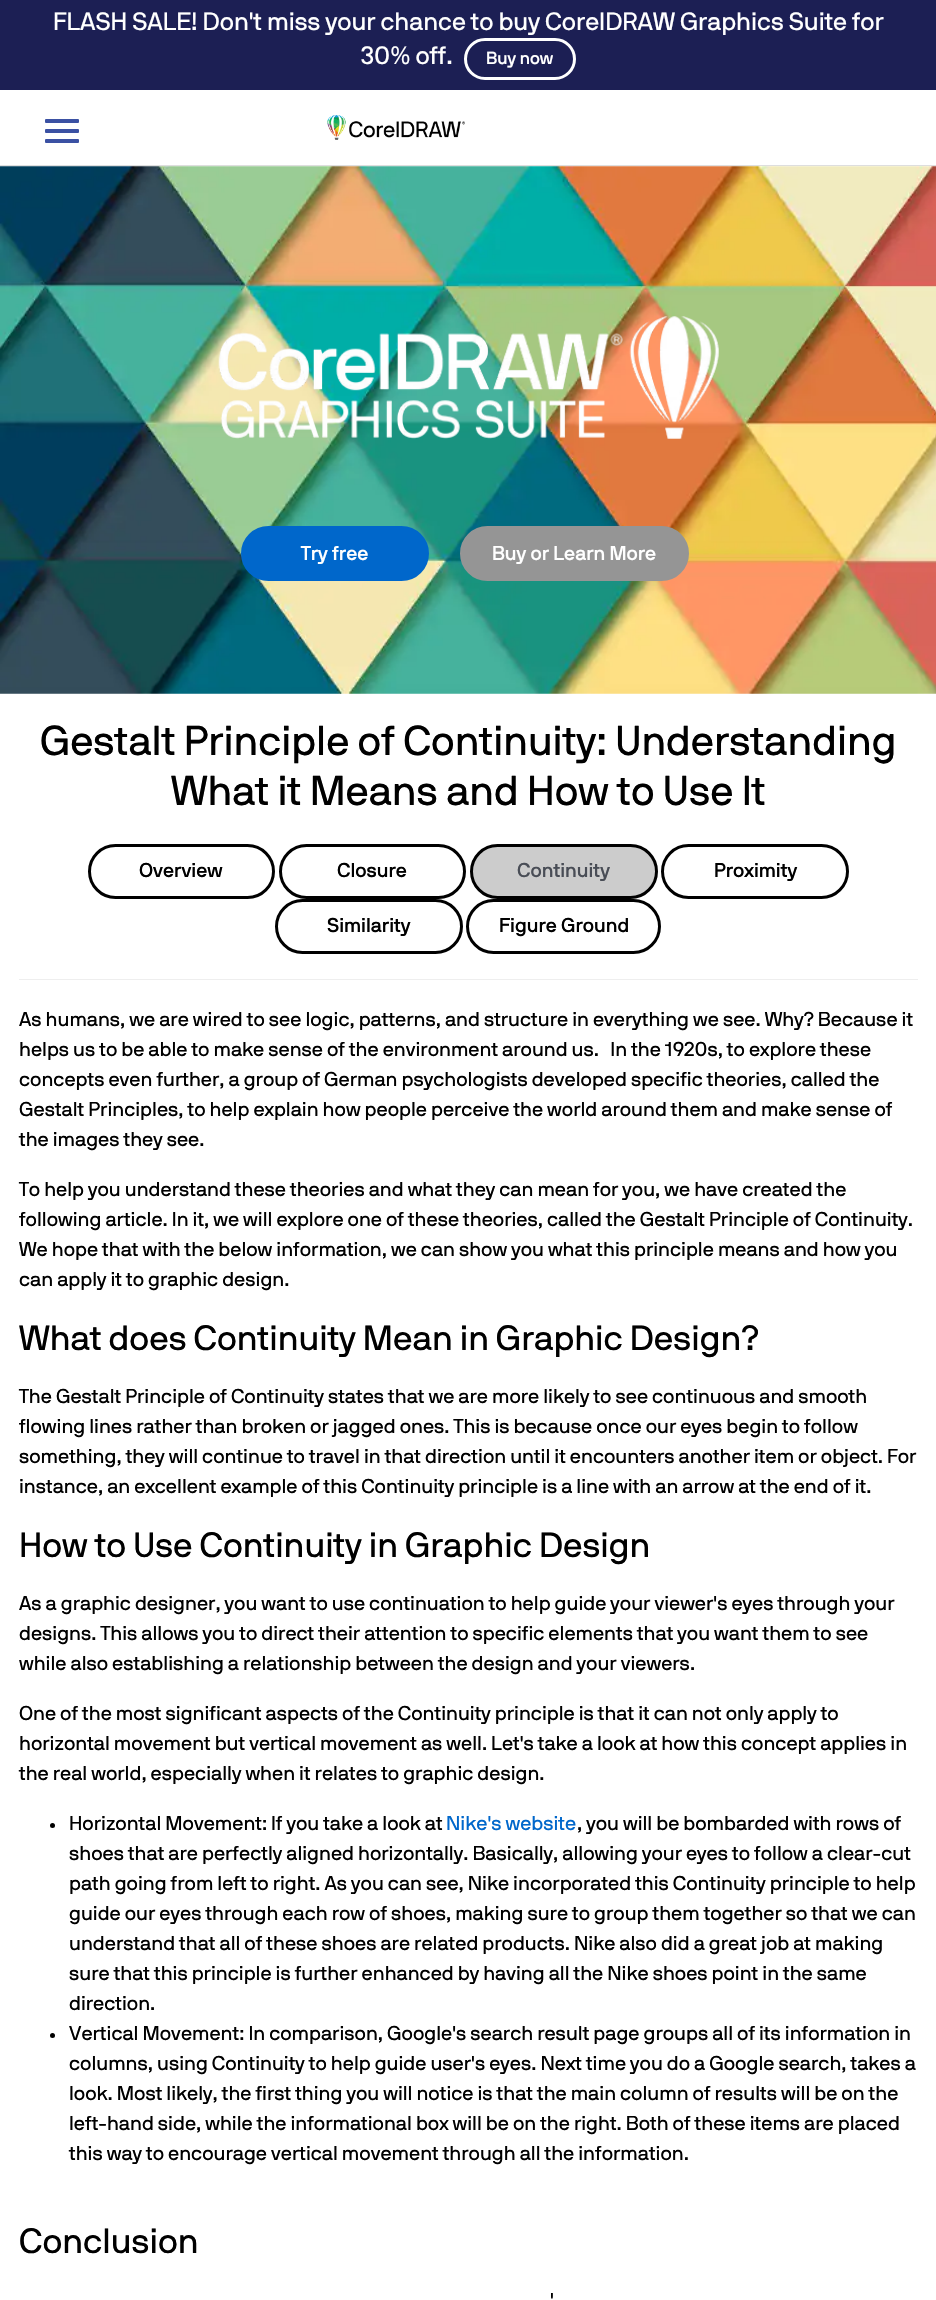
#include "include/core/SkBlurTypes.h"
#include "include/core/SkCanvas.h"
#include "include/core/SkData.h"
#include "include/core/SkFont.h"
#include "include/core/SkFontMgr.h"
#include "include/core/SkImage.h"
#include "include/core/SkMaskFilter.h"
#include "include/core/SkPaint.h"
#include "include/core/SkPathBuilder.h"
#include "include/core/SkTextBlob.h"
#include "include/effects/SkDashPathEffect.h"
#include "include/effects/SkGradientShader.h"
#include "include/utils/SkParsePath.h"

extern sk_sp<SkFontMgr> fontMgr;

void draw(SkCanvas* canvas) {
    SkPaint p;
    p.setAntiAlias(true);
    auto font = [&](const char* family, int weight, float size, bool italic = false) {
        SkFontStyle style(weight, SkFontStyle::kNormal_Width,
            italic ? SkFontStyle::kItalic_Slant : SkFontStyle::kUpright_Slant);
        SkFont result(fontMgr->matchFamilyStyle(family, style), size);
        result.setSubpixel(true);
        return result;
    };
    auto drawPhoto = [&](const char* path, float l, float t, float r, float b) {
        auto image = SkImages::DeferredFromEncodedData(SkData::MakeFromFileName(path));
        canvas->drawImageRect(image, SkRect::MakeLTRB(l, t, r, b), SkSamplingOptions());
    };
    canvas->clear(0xFFFFFFFF);
    p.setColor(0xFF1C1F54);
    canvas->drawRect(SkRect::MakeLTRB(0, 0, 936, 90), p);
    auto font1 = font("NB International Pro", 400, 25);
    p.setColor(0xFFFFFFFF);
    canvas->drawString("FLASH SALE! Don't miss your chance to buy CorelDRAW Graphics Suite for", 53, 30, font1, p);
    canvas->drawString("30% off.", 361, 64, font1, p);
    p.setStyle(SkPaint::kStroke_Style);
    p.setStrokeWidth(3);
    canvas->drawRoundRect(SkRect::MakeLTRB(465.5f, 39.5f, 574.5f, 78.5f), 19.5f, 19.5f, p);
    auto font2 = font("NB International Pro", 500, 17.5f);
    p.setStyle(SkPaint::kFill_Style);
    canvas->drawString("Buy now", 486, 64, font2, p);
    p.setColor(0xFFDEDEDE);
    canvas->drawRect(SkRect::MakeLTRB(0, 165, 936, 166), p);
    p.setColor(0xFF3B51A3);
    canvas->drawRoundRect(SkRect::MakeLTRB(45, 119, 79, 123), 1, 1, p);
    canvas->drawRoundRect(SkRect::MakeLTRB(45, 129, 79, 133), 1, 1, p);
    canvas->drawRoundRect(SkRect::MakeLTRB(45, 139, 79, 143), 1, 1, p);
    drawPhoto("media/1.png", 327, 115, 465, 140);
    drawPhoto("media/2.png", 0, 166, 936, 694);
    drawPhoto("media/3.png", 218, 316, 719, 439);
    p.setColor(0xFF0067CB);
    canvas->drawRoundRect(SkRect::MakeLTRB(242.5f, 527.5f, 427.5f, 579.5f), 26, 26, p);
    p.setStyle(SkPaint::kStroke_Style);
    canvas->drawRoundRect(SkRect::MakeLTRB(242.5f, 527.5f, 427.5f, 579.5f), 26, 26, p);
    auto font3 = font("NB International Pro", 500, 20);
    p.setStyle(SkPaint::kFill_Style);
    p.setColor(0xFFFFFFFF);
    canvas->drawString("Try free", 301, 560, font3, p);
    p.setColor(0xFF959595);
    canvas->drawRoundRect(SkRect::MakeLTRB(461.5f, 527.5f, 687.5f, 579.5f), 26, 26, p);
    p.setStyle(SkPaint::kStroke_Style);
    canvas->drawRoundRect(SkRect::MakeLTRB(461.5f, 527.5f, 687.5f, 579.5f), 26, 26, p);
    p.setStyle(SkPaint::kFill_Style);
    p.setColor(0xFFFFFFFF);
    canvas->drawString("Buy or Learn More", 492, 560, font3, p);
    auto font4 = font("NB International Pro", 400, 41.5f);
    p.setColor(0xFF000000);
    canvas->drawString("Gestalt Principle of Continuity: Understanding", 40, 755, font4, p);
    canvas->drawString("What it Means and How to Use It", 171, 805, font4, p);
    p.setStyle(SkPaint::kStroke_Style);
    canvas->drawRoundRect(SkRect::MakeLTRB(89.5f, 845.5f, 273.5f, 897.5f), 26, 26, p);
    p.setStyle(SkPaint::kFill_Style);
    canvas->drawString("Overview", 139, 877, font3, p);
    p.setStyle(SkPaint::kStroke_Style);
    canvas->drawRoundRect(SkRect::MakeLTRB(280.5f, 845.5f, 464.5f, 897.5f), 26, 26, p);
    p.setStyle(SkPaint::kFill_Style);
    canvas->drawString("Closure", 337, 877, font3, p);
    p.setColor(0xFFCCCCCC);
    canvas->drawRoundRect(SkRect::MakeLTRB(471.5f, 845.5f, 656.5f, 897.5f), 26, 26, p);
    p.setStyle(SkPaint::kStroke_Style);
    p.setColor(0xFF000000);
    canvas->drawRoundRect(SkRect::MakeLTRB(471.5f, 845.5f, 656.5f, 897.5f), 26, 26, p);
    p.setStyle(SkPaint::kFill_Style);
    p.setColor(0xFF494D56);
    canvas->drawString("Continuity", 517, 877, font3, p);
    p.setStyle(SkPaint::kStroke_Style);
    p.setColor(0xFF000000);
    canvas->drawRoundRect(SkRect::MakeLTRB(662.5f, 845.5f, 847.5f, 897.5f), 26, 26, p);
    p.setStyle(SkPaint::kFill_Style);
    canvas->drawString("Proximity", 714, 877, font3, p);
    p.setStyle(SkPaint::kStroke_Style);
    canvas->drawRoundRect(SkRect::MakeLTRB(276.5f, 900.5f, 461.5f, 952.5f), 26, 26, p);
    p.setStyle(SkPaint::kFill_Style);
    canvas->drawString("Similarity", 327, 932, font3, p);
    p.setStyle(SkPaint::kStroke_Style);
    canvas->drawRoundRect(SkRect::MakeLTRB(467.5f, 900.5f, 659.5f, 952.5f), 26, 26, p);
    p.setStyle(SkPaint::kFill_Style);
    canvas->drawString("Figure Ground", 499, 932, font3, p);
    p.setColor(0xFFEEEEEE);
    canvas->drawRect(SkRect::MakeLTRB(19, 979, 918, 980), p);
    auto font5 = font("NB International Pro", 400, 20);
    p.setColor(0xFF000000);
    {
        const struct { const char* s; float x, y; } items[] = {
            {"As humans, we are wired to see logic, patterns, and structure in everything we see. Why? Because it", 19, 1026},
            {"helps us to be able to make sense of the environment around us.   In the 1920s, to explore these", 19, 1056},
            {"concepts even further, a group of German psychologists developed specific theories, called the", 19, 1086},
            {"Gestalt Principles, to help explain how people perceive the world around them and make sense of", 19, 1116},
            {"the images they see.", 19, 1146},
            {"To help you understand these theories and what they can mean for you, we have created the", 19, 1196},
            {"following article. In it, we will explore one of these theories, called the Gestalt Principle of Continuity.", 19, 1226},
            {"We hope that with the below information, we can show you what this principle means and how you", 19, 1256},
            {"can apply it to graphic design.", 19, 1286},
        };
        for (auto [s, x, y] : items) {
            canvas->drawString(s, x, y, font5, p);
        }
    }
    auto font6 = font("NB International Pro", 400, 34.9f);
    canvas->drawString("What does Continuity Mean in Graphic Design?", 19, 1350, font6, p);
    {
        const struct { const char* s; float x, y; } items[] = {
            {"The Gestalt Principle of Continuity states that we are more likely to see continuous and smooth", 19, 1403},
            {"flowing lines rather than broken or jagged ones. This is because once our eyes begin to follow", 19, 1433},
            {"something, they will continue to travel in that direction until it encounters another item or object. For", 19, 1463},
            {"instance, an excellent example of this Continuity principle is a line with an arrow at the end of it.", 19, 1493},
        };
        for (auto [s, x, y] : items) {
            canvas->drawString(s, x, y, font5, p);
        }
    }
    canvas->drawString("How to Use Continuity in Graphic Design", 19, 1557, font6, p);
    {
        const struct { const char* s; float x, y; } items[] = {
            {"As a graphic designer, you want to use continuation to help guide your viewer's eyes through your", 19, 1610},
            {"designs. This allows you to direct their attention to specific elements that you want them to see", 19, 1640},
            {"while also establishing a relationship between the design and your viewers.", 19, 1670},
            {"One of the most significant aspects of the Continuity principle is that it can not only apply to", 19, 1720},
            {"horizontal movement but vertical movement as well. Let's take a look at how this concept applies in", 19, 1750},
            {"the real world, especially when it relates to graphic design.", 19, 1780},
        };
        for (auto [s, x, y] : items) {
            canvas->drawString(s, x, y, font5, p);
        }
    }
    canvas->drawCircle(52.5f, 1825.5f, 2.5f, p);
    canvas->drawString("Horizontal Movement: If you take a look at", 69, 1830, font5, p);
    p.setColor(0xFF0067CB);
    canvas->drawString("Nike's website", 446, 1830, font5, p);
    p.setColor(0xFF000000);
    {
        const struct { const char* s; float x, y; } items[] = {
            {", you will be bombarded with rows of", 577, 1830},
            {"shoes that are perfectly aligned horizontally. Basically, allowing your eyes to follow a clear-cut", 69, 1860},
            {"path going from left to right. As you can see, Nike incorporated this Continuity principle to help", 69, 1890},
            {"guide our eyes through each row of shoes, making sure to group them together so that we can", 69, 1920},
            {"understand that all of these shoes are related products. Nike also did a great job at making", 69, 1950},
            {"sure that this principle is further enhanced by having all the Nike shoes point in the same", 69, 1980},
            {"direction.", 69, 2010},
        };
        for (auto [s, x, y] : items) {
            canvas->drawString(s, x, y, font5, p);
        }
    }
    canvas->drawCircle(52.5f, 2035.5f, 2.5f, p);
    {
        const struct { const char* s; float x, y; } items[] = {
            {"Vertical Movement: In comparison, Google's search result page groups all of its information in", 69, 2040},
            {"columns, using Continuity to help guide user's eyes. Next time you do a Google search, takes a", 69, 2070},
            {"look. Most likely, the first thing you will notice is that the main column of results will be on the", 69, 2100},
            {"left-hand side, while the informational box will be on the right. Both of these items are placed", 69, 2130},
            {"this way to encourage vertical movement through all the information.", 69, 2160},
        };
        for (auto [s, x, y] : items) {
            canvas->drawString(s, x, y, font5, p);
        }
    }
    canvas->drawString("Conclusion", 19, 2253, font6, p);
    canvas->drawString("'", 550, 2307, font5, p);
}
